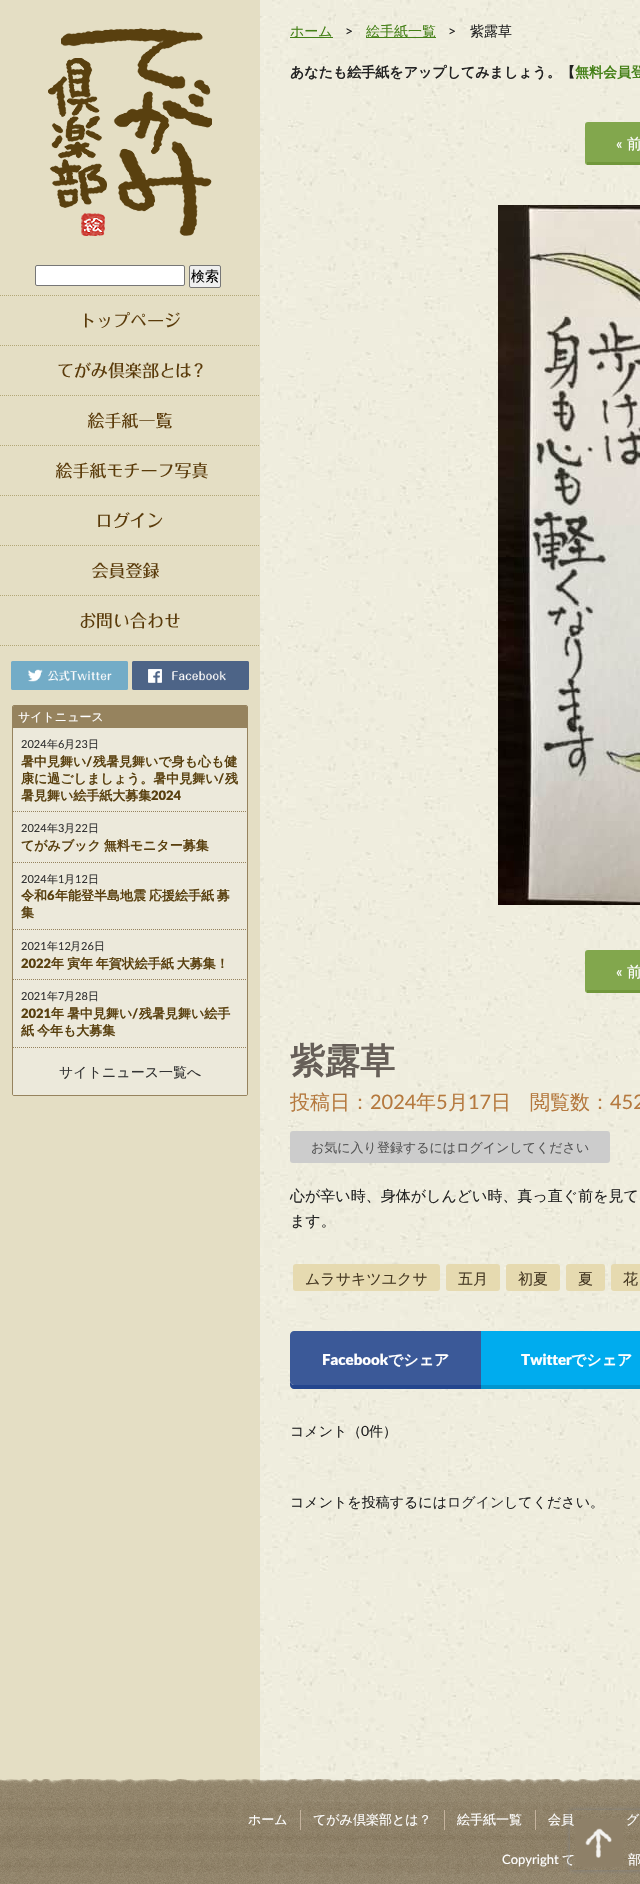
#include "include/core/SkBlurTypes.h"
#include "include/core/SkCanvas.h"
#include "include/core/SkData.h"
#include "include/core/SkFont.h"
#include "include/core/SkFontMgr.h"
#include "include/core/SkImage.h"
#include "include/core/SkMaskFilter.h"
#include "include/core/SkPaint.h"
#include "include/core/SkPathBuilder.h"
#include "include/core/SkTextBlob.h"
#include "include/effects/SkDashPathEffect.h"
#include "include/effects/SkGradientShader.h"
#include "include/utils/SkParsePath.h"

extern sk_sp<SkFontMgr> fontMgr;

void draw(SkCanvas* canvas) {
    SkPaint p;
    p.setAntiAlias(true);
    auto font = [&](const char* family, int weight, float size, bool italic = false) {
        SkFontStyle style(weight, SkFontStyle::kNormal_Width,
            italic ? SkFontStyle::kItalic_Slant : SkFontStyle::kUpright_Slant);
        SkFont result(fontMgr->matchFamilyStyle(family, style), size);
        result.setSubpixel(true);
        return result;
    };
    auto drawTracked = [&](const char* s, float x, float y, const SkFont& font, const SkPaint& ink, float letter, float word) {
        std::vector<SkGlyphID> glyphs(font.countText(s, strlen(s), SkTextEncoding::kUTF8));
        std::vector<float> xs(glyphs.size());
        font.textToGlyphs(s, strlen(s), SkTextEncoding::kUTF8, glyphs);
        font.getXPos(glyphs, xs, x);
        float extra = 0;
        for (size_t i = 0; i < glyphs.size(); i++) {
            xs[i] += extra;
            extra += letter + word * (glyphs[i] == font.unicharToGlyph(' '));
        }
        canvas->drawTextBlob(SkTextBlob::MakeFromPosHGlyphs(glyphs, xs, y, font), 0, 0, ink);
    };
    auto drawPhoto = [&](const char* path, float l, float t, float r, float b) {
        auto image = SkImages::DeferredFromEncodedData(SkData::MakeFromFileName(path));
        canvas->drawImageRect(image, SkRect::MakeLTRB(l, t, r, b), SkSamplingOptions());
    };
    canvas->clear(0xFFFFFFFF);
    drawPhoto("media/1.png", 260, 0, 640, 1884);
    p.setColor(0xFFE4DEC4);
    canvas->drawRect(SkRect::MakeLTRB(0, 0, 260, 1884), p);
    drawPhoto("media/2.png", 48, 28, 212, 236);
    p.setColor(0xFFFFFFFF);
    canvas->drawRoundRect(SkRect::MakeLTRB(35.5f, 265.5f, 184.5f, 285.5f), 1.5f, 1.5f, p);
    p.setStyle(SkPaint::kStroke_Style);
    p.setStrokeWidth(1);
    p.setColor(0xFF767676);
    canvas->drawRoundRect(SkRect::MakeLTRB(35.5f, 265.5f, 184.5f, 285.5f), 1.5f, 1.5f, p);
    p.setStyle(SkPaint::kFill_Style);
    p.setColor(0xFFEFEFEF);
    canvas->drawRoundRect(SkRect::MakeLTRB(189.5f, 265.5f, 220.5f, 287.5f), 1.5f, 1.5f, p);
    p.setStyle(SkPaint::kStroke_Style);
    p.setColor(0xFF767676);
    canvas->drawRoundRect(SkRect::MakeLTRB(189.5f, 265.5f, 220.5f, 287.5f), 1.5f, 1.5f, p);
    auto font1 = font("WenQuanYi Zen Hei", 500, 14);
    p.setStyle(SkPaint::kFill_Style);
    p.setColor(0xFF000000);
    canvas->drawString("検索", 191, 281, font1, p);
    p.setStyle(SkPaint::kStroke_Style);
    p.setColor(0xFFB3A878);
    p.setPathEffect(SkDashPathEffect::Make({{1, 1}}, 0));
    canvas->drawPath(SkPathBuilder().moveTo(0, 295.5f).lineTo(260, 295.5f).detach(), p);
    p.setPathEffect(nullptr);
    p.setPathEffect(SkDashPathEffect::Make({{1, 1}}, 0));
    canvas->drawPath(SkPathBuilder().moveTo(0, 345.5f).lineTo(260, 345.5f).detach(), p);
    p.setPathEffect(nullptr);
    drawPhoto("media/3.png", 85, 312, 180, 328);
    p.setPathEffect(SkDashPathEffect::Make({{1, 1}}, 0));
    canvas->drawPath(SkPathBuilder().moveTo(0, 395.5f).lineTo(260, 395.5f).detach(), p);
    p.setPathEffect(nullptr);
    drawPhoto("media/4.png", 58, 362, 203, 379);
    p.setPathEffect(SkDashPathEffect::Make({{1, 1}}, 0));
    canvas->drawPath(SkPathBuilder().moveTo(0, 445.5f).lineTo(260, 445.5f).detach(), p);
    p.setPathEffect(nullptr);
    drawPhoto("media/5.png", 87, 412, 172, 429);
    p.setPathEffect(SkDashPathEffect::Make({{1, 1}}, 0));
    canvas->drawPath(SkPathBuilder().moveTo(0, 495.5f).lineTo(260, 495.5f).detach(), p);
    p.setPathEffect(nullptr);
    drawPhoto("media/6.png", 55, 462, 208, 479);
    p.setPathEffect(SkDashPathEffect::Make({{1, 1}}, 0));
    canvas->drawPath(SkPathBuilder().moveTo(0, 545.5f).lineTo(260, 545.5f).detach(), p);
    p.setPathEffect(nullptr);
    drawPhoto("media/7.png", 98, 512, 163, 528);
    p.setPathEffect(SkDashPathEffect::Make({{1, 1}}, 0));
    canvas->drawPath(SkPathBuilder().moveTo(0, 595.5f).lineTo(260, 595.5f).detach(), p);
    p.setPathEffect(nullptr);
    drawPhoto("media/8.png", 92, 562, 159, 579);
    p.setPathEffect(SkDashPathEffect::Make({{1, 1}}, 0));
    canvas->drawPath(SkPathBuilder().moveTo(0, 645.5f).lineTo(260, 645.5f).detach(), p);
    p.setPathEffect(nullptr);
    drawPhoto("media/9.png", 80, 612, 180, 629);
    drawPhoto("media/10.png", 11, 661, 128, 690);
    drawPhoto("media/11.png", 132, 661, 249, 690);
    p.setColor(0xFF96835E);
    canvas->drawRoundRect(SkRect::MakeLTRB(12.5f, 705.5f, 247.5f, 1095.5f), 1.5f, 1.5f, p);
    p.setStyle(SkPaint::kFill_Style);
    canvas->drawPath(SkPathBuilder().moveTo(14, 706).lineTo(246, 706).cubicTo(246.5f, 706, 247, 706.5f, 247, 707).lineTo(247, 728).lineTo(13, 728).lineTo(13, 707).cubicTo(13, 706.5f, 13.5f, 706, 14, 706).close().detach(), p);
    auto font2 = font("WenQuanYi Zen Hei", 500, 12);
    p.setColor(0xFFFFFFFF);
    canvas->drawString("サイトニュース", 18, 721, font2, p);
    p.setColor(0xFFECE9DB);
    canvas->drawPath(SkPathBuilder().moveTo(13, 728).lineTo(247, 728).lineTo(247, 1094).cubicTo(247, 1094.5f, 246.5f, 1095, 246, 1095).lineTo(14, 1095).cubicTo(13.5f, 1095, 13, 1094.5f, 13, 1094).close().detach(), p);
    p.setStyle(SkPaint::kStroke_Style);
    p.setColor(0xFF96835E);
    p.setPathEffect(SkDashPathEffect::Make({{1, 1}}, 0));
    canvas->drawPath(SkPathBuilder().moveTo(13, 811.5f).lineTo(247, 811.5f).detach(), p);
    p.setPathEffect(nullptr);
    auto font3 = font("Lato", 400, 11);
    p.setStyle(SkPaint::kFill_Style);
    p.setColor(0xFF333333);
    canvas->drawString("2024", 21, 748, font3, p);
    auto font4 = font("WenQuanYi Zen Hei", 500, 11);
    canvas->drawString("年", 47, 748, font4, p);
    canvas->drawString("6", 58, 748, font3, p);
    canvas->drawString("月", 64, 748, font4, p);
    canvas->drawString("23", 75, 748, font3, p);
    canvas->drawString("日", 88, 748, font4, p);
    auto font5 = font("WenQuanYi Zen Hei", 700, 13);
    p.setColor(0xFF59400F);
    canvas->drawString("暑中見舞い", 21, 766, font5, p);
    auto font6 = font("Lato", 800, 13);
    canvas->drawString("/", 86, 766, font6, p);
    canvas->drawString("残暑見舞いで身も心も健", 93, 766, font5, p);
    canvas->drawString("康に過ごしましょう。暑中見舞い", 21, 783, font5, p);
    canvas->drawString("/", 218, 783, font6, p);
    canvas->drawString("残", 225, 783, font5, p);
    canvas->drawString("暑見舞い絵手紙大募集", 21, 800, font5, p);
    canvas->drawString("2024", 151, 800, font6, p);
    p.setStyle(SkPaint::kStroke_Style);
    p.setColor(0xFF96835E);
    p.setPathEffect(SkDashPathEffect::Make({{1, 1}}, 0));
    canvas->drawPath(SkPathBuilder().moveTo(13, 862.5f).lineTo(247, 862.5f).detach(), p);
    p.setPathEffect(nullptr);
    p.setStyle(SkPaint::kFill_Style);
    p.setColor(0xFF333333);
    canvas->drawString("2024", 21, 832, font3, p);
    canvas->drawString("年", 47, 832, font4, p);
    canvas->drawString("3", 58, 832, font3, p);
    canvas->drawString("月", 64, 832, font4, p);
    canvas->drawString("22", 75, 832, font3, p);
    canvas->drawString("日", 88, 832, font4, p);
    p.setColor(0xFF59400F);
    drawTracked("てがみブック 無料モニター募集", 21, 850, font5, p, 0, -1);
    p.setStyle(SkPaint::kStroke_Style);
    p.setColor(0xFF96835E);
    p.setPathEffect(SkDashPathEffect::Make({{1, 1}}, 0));
    canvas->drawPath(SkPathBuilder().moveTo(13, 929.5f).lineTo(247, 929.5f).detach(), p);
    p.setPathEffect(nullptr);
    p.setStyle(SkPaint::kFill_Style);
    p.setColor(0xFF333333);
    canvas->drawString("2024", 21, 883, font3, p);
    canvas->drawString("年", 47, 883, font4, p);
    canvas->drawString("1", 58, 883, font3, p);
    canvas->drawString("月", 64, 883, font4, p);
    canvas->drawString("12", 75, 883, font3, p);
    canvas->drawString("日", 88, 883, font4, p);
    p.setColor(0xFF59400F);
    canvas->drawString("令和", 21, 900, font5, p);
    canvas->drawString("6", 47, 900, font6, p);
    drawTracked("年能登半島地震 応援絵手紙 募", 55, 900, font5, p, 0, -1);
    canvas->drawString("集", 21, 917, font5, p);
    p.setStyle(SkPaint::kStroke_Style);
    p.setColor(0xFF96835E);
    p.setPathEffect(SkDashPathEffect::Make({{1, 1}}, 0));
    canvas->drawPath(SkPathBuilder().moveTo(13, 979.5f).lineTo(247, 979.5f).detach(), p);
    p.setPathEffect(nullptr);
    p.setStyle(SkPaint::kFill_Style);
    p.setColor(0xFF333333);
    canvas->drawString("2021", 21, 950, font3, p);
    canvas->drawString("年", 47, 950, font4, p);
    canvas->drawString("12", 58, 950, font3, p);
    canvas->drawString("月", 70, 950, font4, p);
    canvas->drawString("26", 81, 950, font3, p);
    canvas->drawString("日", 94, 950, font4, p);
    p.setColor(0xFF59400F);
    canvas->drawString("2022", 21, 968, font6, p);
    drawTracked("年 寅年 年賀状絵手紙 大募集！", 51, 968, font5, p, 0, -1);
    p.setStyle(SkPaint::kStroke_Style);
    p.setColor(0xFF96835E);
    p.setPathEffect(SkDashPathEffect::Make({{1, 1}}, 0));
    canvas->drawPath(SkPathBuilder().moveTo(13, 1047.5f).lineTo(247, 1047.5f).detach(), p);
    p.setPathEffect(nullptr);
    p.setStyle(SkPaint::kFill_Style);
    p.setColor(0xFF333333);
    canvas->drawString("2021", 21, 1000, font3, p);
    canvas->drawString("年", 47, 1000, font4, p);
    canvas->drawString("7", 58, 1000, font3, p);
    canvas->drawString("月", 64, 1000, font4, p);
    canvas->drawString("28", 75, 1000, font3, p);
    canvas->drawString("日", 88, 1000, font4, p);
    p.setColor(0xFF59400F);
    canvas->drawString("2021", 21, 1018, font6, p);
    drawTracked("年 暑中見舞い", 51, 1018, font5, p, 0, -1);
    canvas->drawString("/", 132, 1018, font6, p);
    canvas->drawString("残暑見舞い絵手", 139, 1018, font5, p);
    drawTracked("紙 今年も大募集", 21, 1035, font5, p, 0, -1);
    p.setColor(0xFF333333);
    canvas->drawString("サイトニュース一覧へ", 59, 1077, font1, p);
    p.setColor(0xFF448016);
    canvas->drawRect(SkRect::MakeLTRB(290, 37, 333, 38), p);
    canvas->drawString("ホーム", 290, 36, font1, p);
    auto font7 = font("Lato", 400, 14);
    p.setColor(0xFF222222);
    canvas->drawString(">", 345, 36, font7, p);
    p.setColor(0xFF448016);
    canvas->drawRect(SkRect::MakeLTRB(366, 37, 436, 38), p);
    canvas->drawString("絵手紙一覧", 366, 36, font1, p);
    p.setColor(0xFF222222);
    canvas->drawString(">", 448, 36, font7, p);
    canvas->drawString("紫露草", 470, 36, font1, p);
    auto font8 = font("WenQuanYi Zen Hei", 700, 14);
    canvas->drawString("あなたも絵手紙をアップしてみましょう。【", 290, 77, font8, p);
    p.setColor(0xFF448016);
    canvas->drawString("無料会員登", 575, 77, font8, p);
    p.setColor(0xFF82A74D);
    canvas->drawRoundRect(SkRect::MakeLTRB(585, 122, 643, 165), 3, 3, p);
    p.setColor(0xFF71973B);
    canvas->drawRect(SkRect::MakeLTRB(587, 162, 640, 165), p);
    auto font9 = font("Lato", 400, 15);
    p.setColor(0xFFFFFFFF);
    canvas->drawString("«", 616, 149, font9, p);
    auto font10 = font("WenQuanYi Zen Hei", 500, 15);
    canvas->drawString("前", 627, 149, font10, p);
    drawPhoto("media/12.png", 498, 205, 640, 905);
    p.setColor(0xFF82A74D);
    canvas->drawRoundRect(SkRect::MakeLTRB(585, 950, 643, 993), 3, 3, p);
    p.setColor(0xFF71973B);
    canvas->drawRect(SkRect::MakeLTRB(587, 990, 640, 993), p);
    p.setColor(0xFFFFFFFF);
    canvas->drawString("«", 616, 977, font9, p);
    canvas->drawString("前", 627, 977, font10, p);
    auto font11 = font("WenQuanYi Zen Hei", 700, 35);
    p.setColor(0xFF665F58);
    canvas->drawString("紫露草", 290, 1073, font11, p);
    auto font12 = font("WenQuanYi Zen Hei", 500, 20);
    p.setColor(0xFFB5793E);
    canvas->drawString("投稿日：", 290, 1109, font12, p);
    auto font13 = font("Lato", 400, 20);
    canvas->drawString("2024", 370, 1109, font13, p);
    canvas->drawString("年", 416, 1109, font12, p);
    canvas->drawString("5", 436, 1109, font13, p);
    canvas->drawString("月", 448, 1109, font12, p);
    canvas->drawString("17", 468, 1109, font13, p);
    canvas->drawString("日", 491, 1109, font12, p);
    canvas->drawString("閲覧数：", 530, 1109, font12, p);
    canvas->drawString("452", 610, 1109, font13, p);
    p.setColor(0xFFCCCCCC);
    canvas->drawRoundRect(SkRect::MakeLTRB(290, 1131, 610, 1163), 3, 3, p);
    auto font14 = font("WenQuanYi Zen Hei", 500, 13);
    p.setColor(0xFF555555);
    canvas->drawString("お気に入り登録するにはログインしてください", 311, 1152, font14, p);
    p.setColor(0xFF222222);
    canvas->drawString("心が辛い時、身体がしんどい時、真っ直ぐ前を見て", 290, 1201, font10, p);
    canvas->drawString("ます。", 290, 1226, font10, p);
    p.setColor(0xFFE6DAB0);
    canvas->drawRoundRect(SkRect::MakeLTRB(293, 1264, 440, 1291), 3, 3, p);
    p.setColor(0xFF473A24);
    canvas->drawString("ムラサキツユクサ", 305, 1284, font10, p);
    p.setColor(0xFFE6DAB0);
    canvas->drawRoundRect(SkRect::MakeLTRB(446, 1264, 500, 1291), 3, 3, p);
    p.setColor(0xFF473A24);
    canvas->drawString("五月", 458, 1284, font10, p);
    p.setColor(0xFFE6DAB0);
    canvas->drawRoundRect(SkRect::MakeLTRB(506, 1264, 560, 1291), 3, 3, p);
    p.setColor(0xFF473A24);
    canvas->drawString("初夏", 518, 1284, font10, p);
    p.setColor(0xFFE6DAB0);
    canvas->drawRoundRect(SkRect::MakeLTRB(566, 1264, 605, 1291), 3, 3, p);
    p.setColor(0xFF473A24);
    canvas->drawString("夏", 578, 1284, font10, p);
    p.setColor(0xFFE6DAB0);
    canvas->drawRoundRect(SkRect::MakeLTRB(611, 1264, 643, 1291), 3, 3, p);
    p.setColor(0xFF473A24);
    canvas->drawString("花", 623, 1284, font10, p);
    p.setColor(0xFF24468E);
    canvas->drawPath(SkPathBuilder().moveTo(290, 1381).lineTo(290, 1385).cubicTo(290, 1387, 292, 1389, 294, 1389).lineTo(481, 1389).lineTo(481, 1385).lineTo(294, 1385).cubicTo(292, 1385, 290, 1383, 290, 1381).close().detach(), p);
    p.setColor(0xFF3B5998);
    canvas->drawPath(SkPathBuilder().moveTo(294, 1331).lineTo(481, 1331).lineTo(481, 1385).lineTo(294, 1385).cubicTo(292, 1385, 290, 1383, 290, 1381).lineTo(290, 1335).cubicTo(290, 1333, 292, 1331, 294, 1331).close().detach(), p);
    auto font15 = font("Lato", 800, 15);
    p.setColor(0xFFFFFFFF);
    canvas->drawString("Facebook", 322, 1365, font15, p);
    auto font16 = font("WenQuanYi Zen Hei", 700, 15);
    canvas->drawString("でシェア", 388, 1365, font16, p);
    p.setColor(0xFF0095CE);
    canvas->drawRect(SkRect::MakeLTRB(481, 1385, 640, 1389), p);
    p.setColor(0xFF00ACEE);
    canvas->drawRect(SkRect::MakeLTRB(481, 1331, 640, 1385), p);
    p.setColor(0xFFFFFFFF);
    canvas->drawString("Twitter", 521, 1365, font15, p);
    canvas->drawString("でシェア", 571, 1365, font16, p);
    p.setColor(0xFF222222);
    canvas->drawString("コメント（", 290, 1436, font1, p);
    canvas->drawString("0", 361, 1436, font7, p);
    canvas->drawString("件）", 369, 1436, font1, p);
    canvas->drawString("コメントを投稿するには", 290, 1507, font1, p);
    p.setColor(0xFF333333);
    canvas->drawString("ログイン", 447, 1507, font1, p);
    p.setColor(0xFF222222);
    canvas->drawString("してください。", 504, 1507, font1, p);
    drawPhoto("media/13.png", 0, 1779, 640, 1884);
    p.setColor(0xFFC5B39E);
    canvas->drawRect(SkRect::MakeLTRB(300, 1810, 301, 1830), p);
    p.setColor(0xFFFFFFFF);
    canvas->drawString("ホーム", 248, 1824, font14, p);
    p.setColor(0xFFC5B39E);
    canvas->drawRect(SkRect::MakeLTRB(444, 1810, 445, 1830), p);
    p.setColor(0xFFFFFFFF);
    canvas->drawString("てがみ倶楽部とは？", 313, 1824, font14, p);
    p.setColor(0xFFC5B39E);
    canvas->drawRect(SkRect::MakeLTRB(535, 1810, 536, 1830), p);
    p.setColor(0xFFFFFFFF);
    {
        const struct { const char* s; float x, y; } items[] = {
            {"絵手紙一覧", 457, 1824},
            {"会員", 548, 1824},
            {"グ", 626, 1824},
        };
        for (auto [s, x, y] : items) {
            canvas->drawString(s, x, y, font14, p);
        }
    }
    auto font17 = font("Lato", 400, 13);
    canvas->drawString("Copyright", 502, 1864, font17, p);
    canvas->drawString("て", 562, 1864, font14, p);
    canvas->drawString("部", 628, 1864, font14, p);
    canvas->save();
    canvas->clipPath(SkPathBuilder(SkPathFillType::kEvenOdd).moveTo(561, 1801).lineTo(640, 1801).lineTo(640, 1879).lineTo(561, 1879).close().moveTo(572, 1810).lineTo(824, 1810).cubicTo(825, 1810, 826, 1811, 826, 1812).lineTo(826, 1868).cubicTo(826, 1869, 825, 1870, 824, 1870).lineTo(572, 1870).cubicTo(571, 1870, 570, 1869, 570, 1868).lineTo(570, 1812).cubicTo(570, 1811, 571, 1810, 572, 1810).close().detach(), true);
    p.setColor(0xFF808080);
    p.setMaskFilter(SkMaskFilter::MakeBlur(kNormal_SkBlurStyle, 2.5f));
    canvas->drawRoundRect(SkRect::MakeLTRB(570, 1810, 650, 1870), 2, 2, p);
    p.setMaskFilter(nullptr);
    canvas->restore();
    drawPhoto("media/14.png", 575, 1818, 625, 1868);
}
